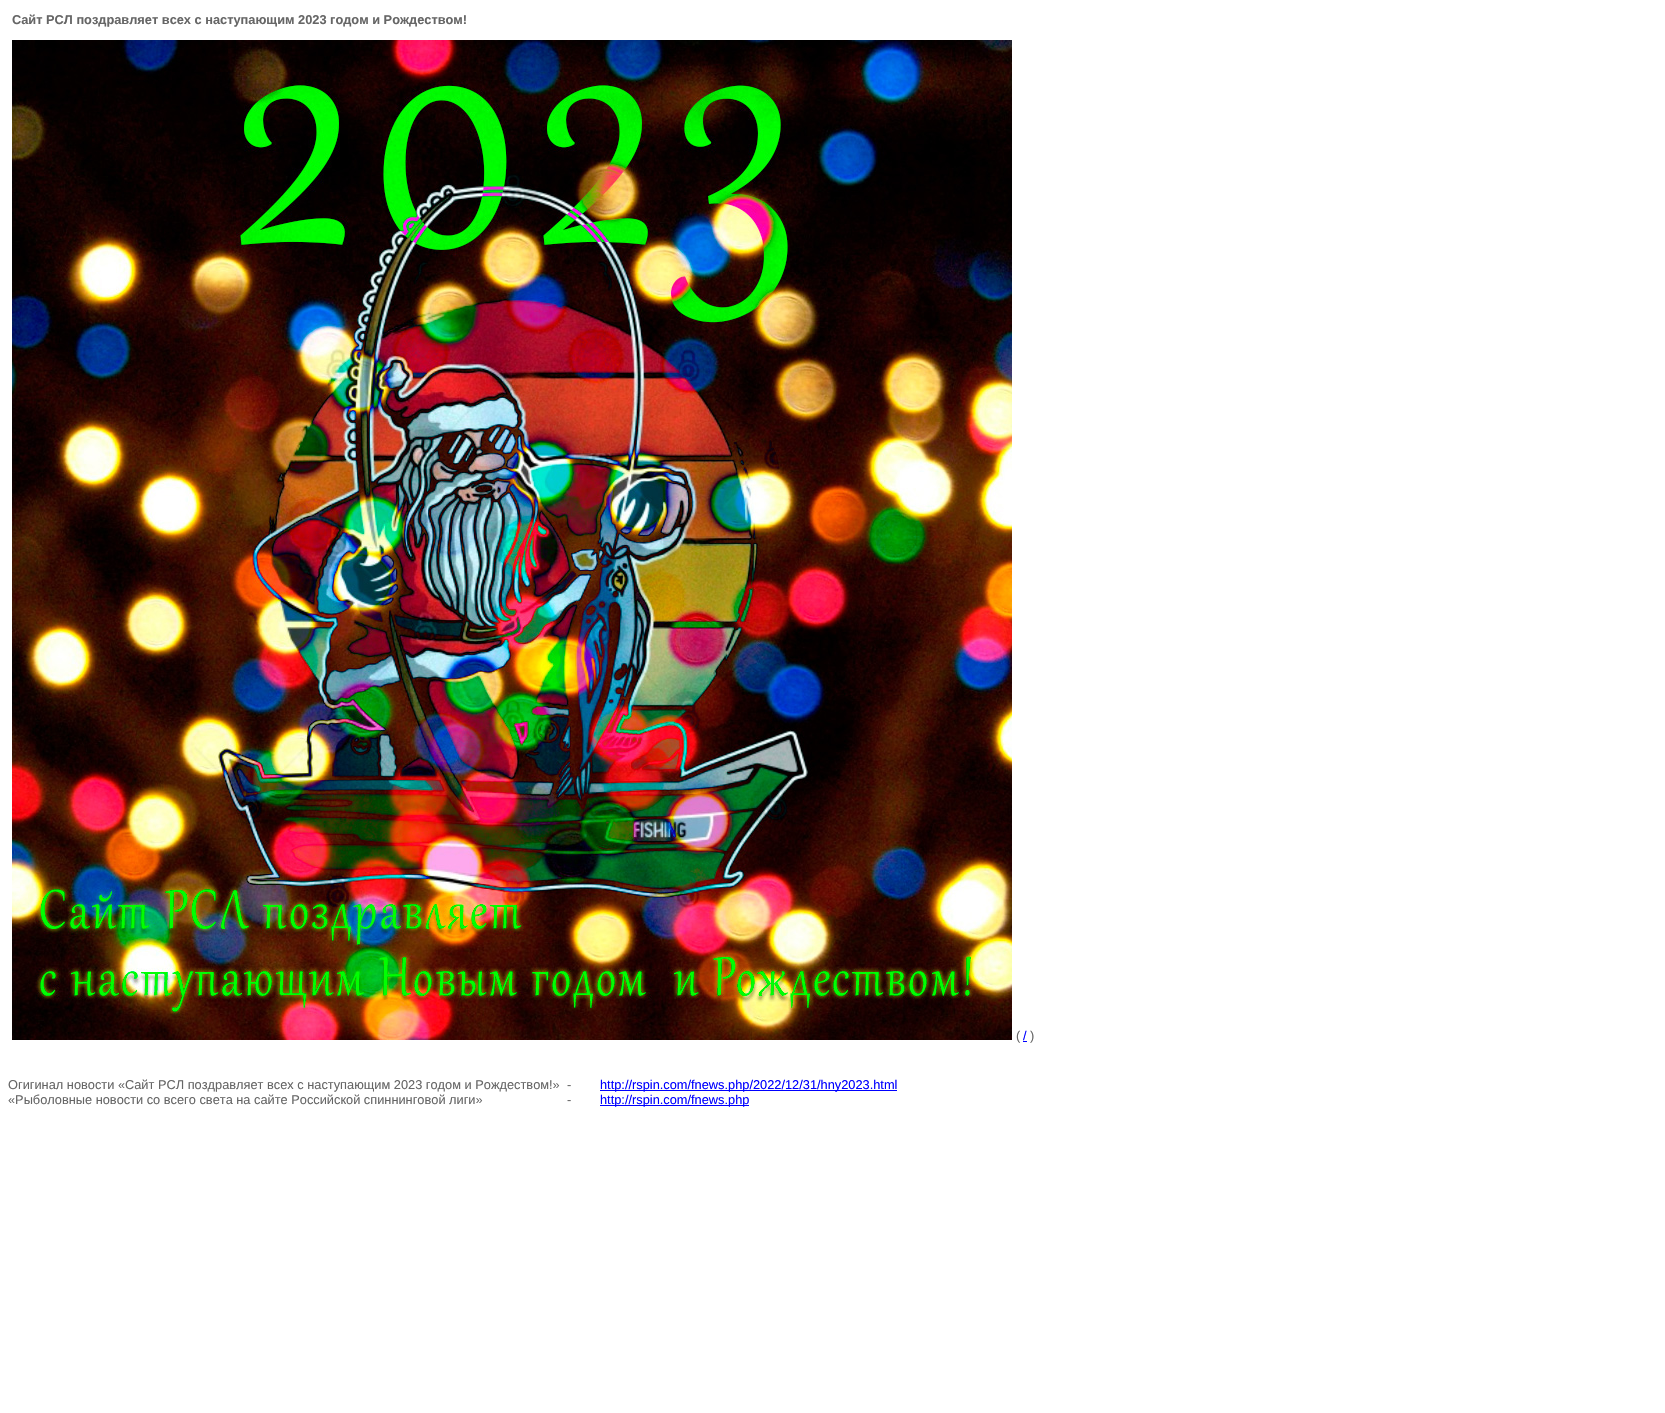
#include "include/core/SkBlurTypes.h"
#include "include/core/SkCanvas.h"
#include "include/core/SkData.h"
#include "include/core/SkFont.h"
#include "include/core/SkFontMgr.h"
#include "include/core/SkImage.h"
#include "include/core/SkMaskFilter.h"
#include "include/core/SkPaint.h"
#include "include/core/SkPathBuilder.h"
#include "include/core/SkTextBlob.h"
#include "include/effects/SkDashPathEffect.h"
#include "include/effects/SkGradientShader.h"
#include "include/utils/SkParsePath.h"

extern sk_sp<SkFontMgr> fontMgr;

void draw(SkCanvas* canvas) {
    SkPaint p;
    p.setAntiAlias(true);
    auto font = [&](const char* family, int weight, float size, bool italic = false) {
        SkFontStyle style(weight, SkFontStyle::kNormal_Width,
            italic ? SkFontStyle::kItalic_Slant : SkFontStyle::kUpright_Slant);
        SkFont result(fontMgr->matchFamilyStyle(family, style), size);
        result.setSubpixel(true);
        return result;
    };
    auto drawPhoto = [&](const char* path, float l, float t, float r, float b) {
        auto image = SkImages::DeferredFromEncodedData(SkData::MakeFromFileName(path));
        canvas->drawImageRect(image, SkRect::MakeLTRB(l, t, r, b), SkSamplingOptions());
    };
    canvas->clear(0xFFFFFFFF);
    auto font1 = font("Liberation Sans", 700, 12.8f);
    p.setColor(0xFF666666);
    canvas->drawString("Сайт РСЛ поздравляет всех с наступающим 2023 годом и Рождеством!", 12, 24, font1, p);
    drawPhoto("media/1.png", 12, 40, 1012, 1040);
    auto font2 = font("Liberation Sans", 400, 12.8f);
    canvas->drawString("(", 1016, 1040, font2, p);
    p.setColor(0xFF0000FF);
    canvas->drawString("/", 1023, 1040, font2, p);
    canvas->drawRect(SkRect::MakeLTRB(1023, 1041, 1027, 1042), p);
    p.setColor(0xFF666666);
    {
        const struct { const char* s; float x, y; } items[] = {
            {")", 1030, 1040},
            {"Огигинал новости «Сайт РСЛ поздравляет всех с наступающим 2023 годом и Рождеством!»", 8, 1089},
            {"-", 567, 1089},
        };
        for (auto [s, x, y] : items) {
            canvas->drawString(s, x, y, font2, p);
        }
    }
    p.setColor(0xFF0000FF);
    canvas->drawRect(SkRect::MakeLTRB(600, 1090, 897, 1091), p);
    canvas->drawString("http://rspin.com/fnews.php/2022/12/31/hny2023.html", 600, 1089, font2, p);
    p.setColor(0xFF666666);
    canvas->drawString("«Рыболовные новости со всего света на сайте Российской спиннинговой лиги»", 8, 1104, font2, p);
    canvas->drawString("-", 567, 1104, font2, p);
    p.setColor(0xFF0000FF);
    canvas->drawRect(SkRect::MakeLTRB(600, 1105, 749, 1106), p);
    canvas->drawString("http://rspin.com/fnews.php", 600, 1104, font2, p);
}
